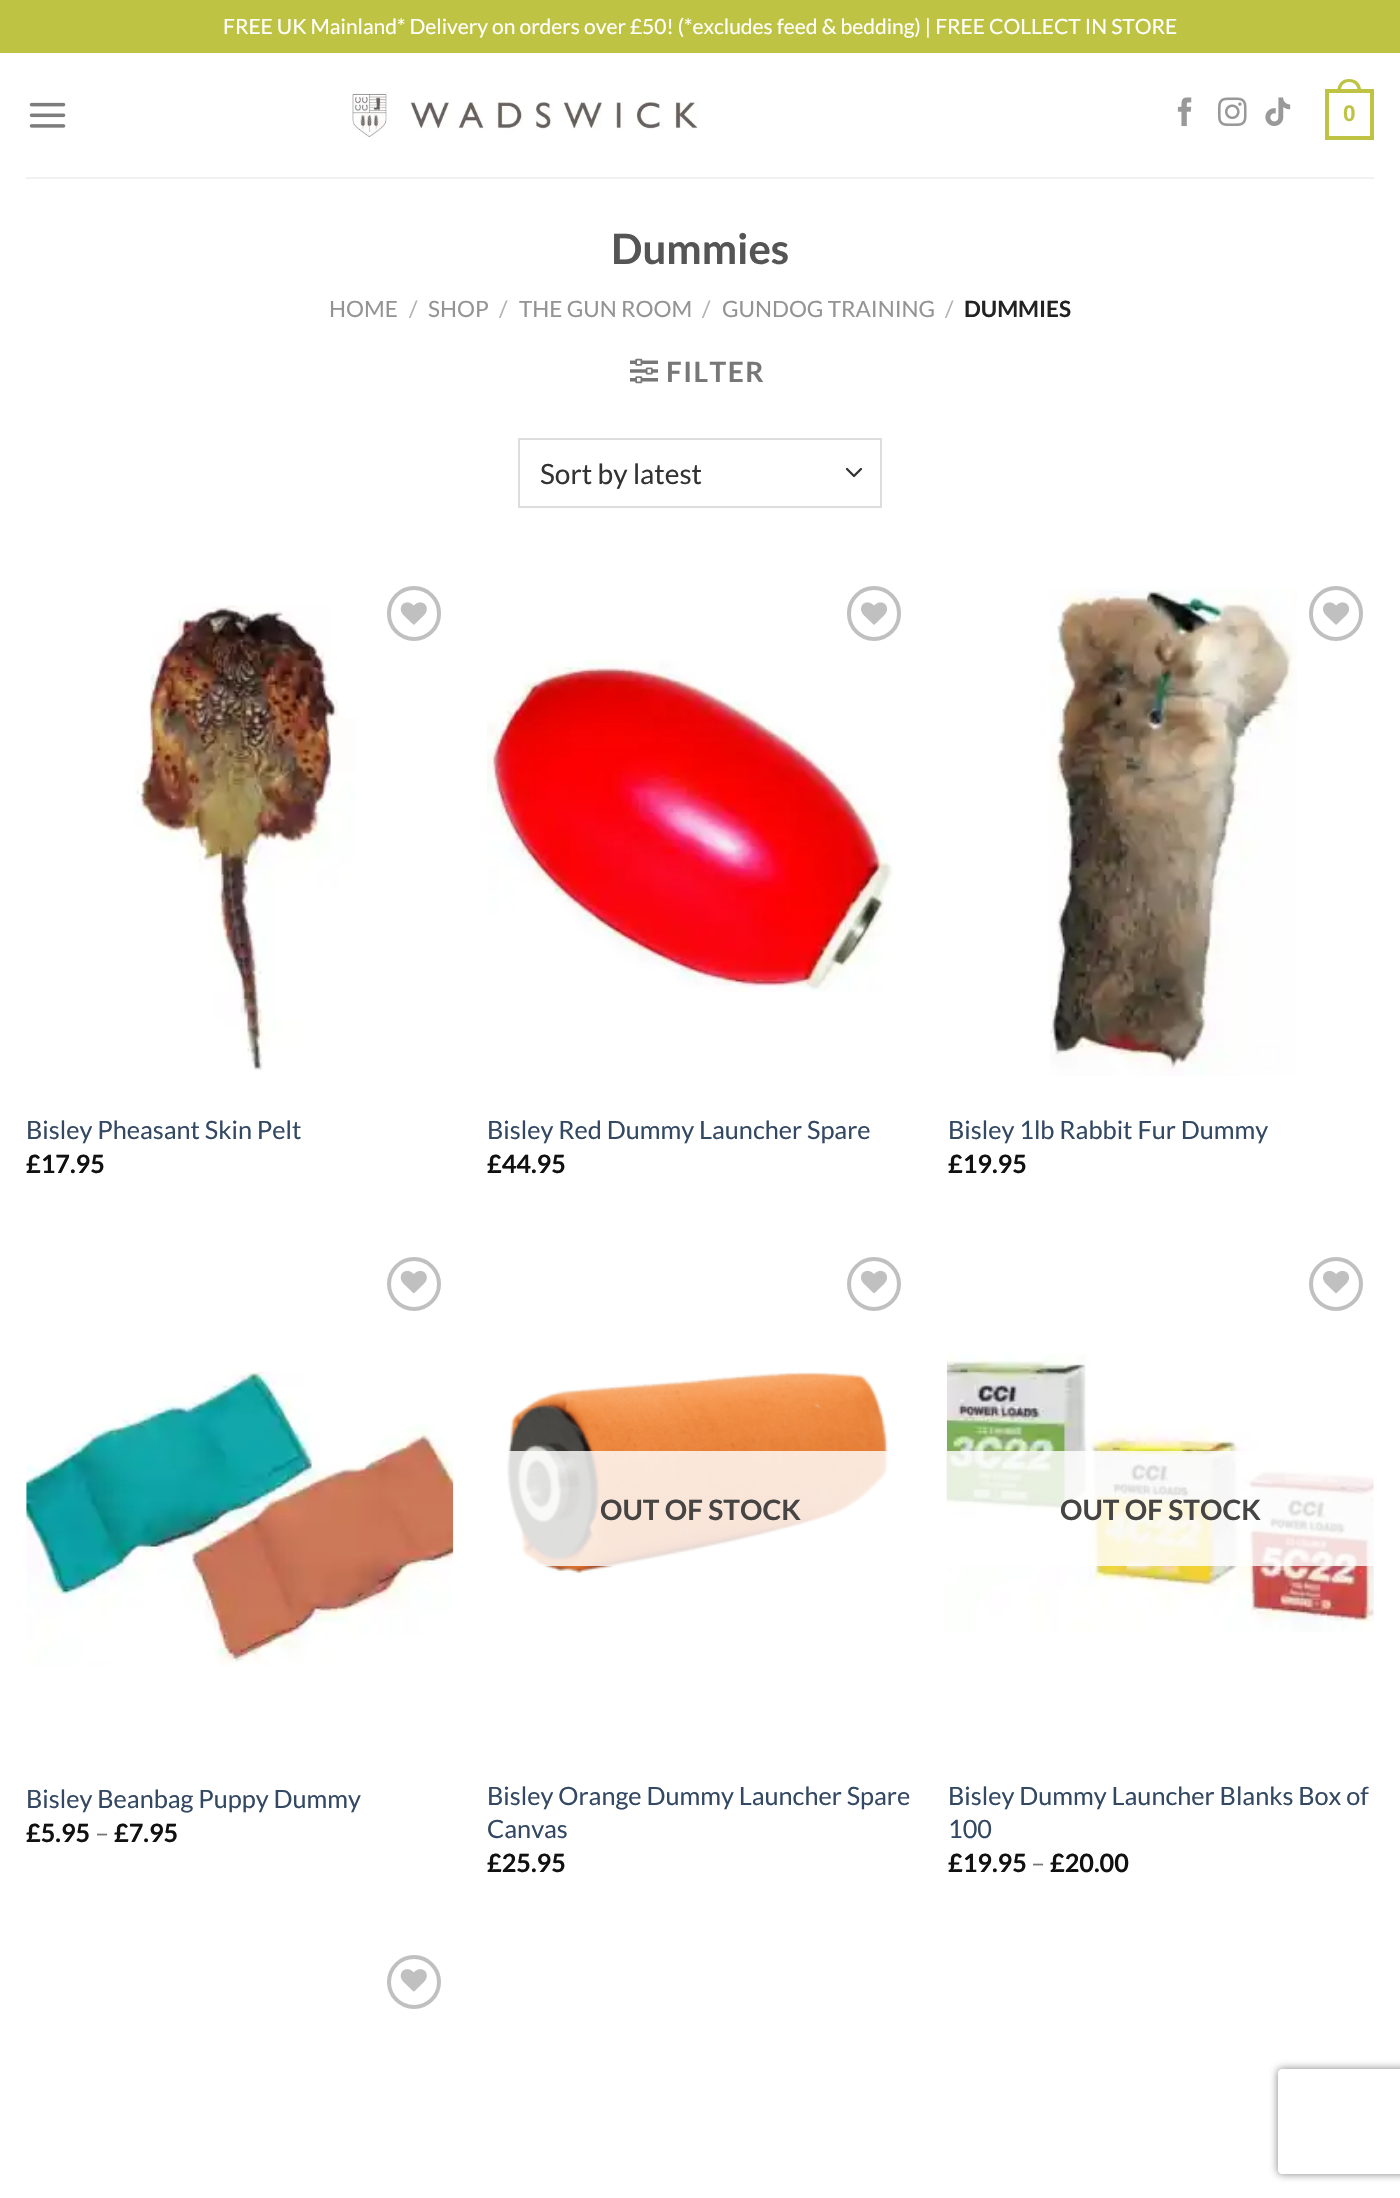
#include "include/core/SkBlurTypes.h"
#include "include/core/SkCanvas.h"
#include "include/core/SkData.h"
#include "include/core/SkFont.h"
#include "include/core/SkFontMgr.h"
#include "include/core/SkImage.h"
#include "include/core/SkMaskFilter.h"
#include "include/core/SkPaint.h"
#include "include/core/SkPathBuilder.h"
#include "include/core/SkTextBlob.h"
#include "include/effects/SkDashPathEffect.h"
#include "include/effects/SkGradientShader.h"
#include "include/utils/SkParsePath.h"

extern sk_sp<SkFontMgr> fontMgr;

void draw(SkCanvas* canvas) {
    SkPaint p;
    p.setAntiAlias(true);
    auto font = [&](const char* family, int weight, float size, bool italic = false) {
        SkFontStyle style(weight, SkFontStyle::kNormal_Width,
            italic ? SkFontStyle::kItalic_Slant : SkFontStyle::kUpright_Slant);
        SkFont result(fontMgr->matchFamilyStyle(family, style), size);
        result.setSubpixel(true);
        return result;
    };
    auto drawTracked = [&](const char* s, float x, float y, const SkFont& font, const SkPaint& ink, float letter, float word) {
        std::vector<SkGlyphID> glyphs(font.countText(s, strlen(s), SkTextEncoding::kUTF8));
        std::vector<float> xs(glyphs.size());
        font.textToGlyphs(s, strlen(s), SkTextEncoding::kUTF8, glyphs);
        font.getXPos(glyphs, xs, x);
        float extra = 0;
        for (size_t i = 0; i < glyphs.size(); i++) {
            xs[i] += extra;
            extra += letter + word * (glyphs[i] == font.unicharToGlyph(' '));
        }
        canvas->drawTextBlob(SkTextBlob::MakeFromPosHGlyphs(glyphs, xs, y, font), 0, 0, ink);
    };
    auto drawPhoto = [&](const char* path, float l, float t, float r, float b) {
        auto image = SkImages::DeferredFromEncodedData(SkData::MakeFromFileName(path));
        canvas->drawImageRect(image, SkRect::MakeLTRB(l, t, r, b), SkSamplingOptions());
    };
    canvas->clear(0xFFFFFFFF);
    p.setColor(0xFFBEC344);
    canvas->drawRect(SkRect::MakeLTRB(0, 0, 1400, 53), p);
    auto font1 = font("Lato", 400, 21);
    p.setColor(0xFFFFFFFF);
    canvas->drawString("FREE UK Mainland* Delivery on orders over £50! (*excludes feed & bedding) | FREE COLLECT IN STORE", 223, 34, font1, p);
    drawPhoto("media/1.png", 29, 102, 66, 128);
    drawPhoto("media/2.png", 352, 93, 698, 137);
    drawPhoto("media/3.png", 1177, 97, 1192, 127);
    drawPhoto("media/4.png", 1218, 97, 1247, 127);
    drawPhoto("media/5.png", 1265, 97, 1291, 126);
    p.setStyle(SkPaint::kStroke_Style);
    p.setStrokeWidth(4);
    p.setColor(0xFFBEC344);
    canvas->drawRect(SkRect::MakeLTRB(1327, 91, 1372, 138), p);
    p.setStyle(SkPaint::kFill_Style);
    canvas->drawPath(SkPathBuilder(SkPathFillType::kEvenOdd).moveTo(1349, 79).cubicTo(1357.5f, 79, 1361.5f, 85, 1361.5f, 93).lineTo(1337, 93).cubicTo(1337, 85, 1341, 79, 1349, 79).close().moveTo(1349, 82).cubicTo(1355.5f, 82, 1358, 87, 1358, 93).lineTo(1340.5f, 93).cubicTo(1340.5f, 87, 1343, 82, 1349, 82).close().detach(), p);
    auto font2 = font("Liberation Sans", 700, 22.5f);
    canvas->drawString("0", 1343, 121, font2, p);
    p.setColor(0xFFF1F1F1);
    canvas->drawRect(SkRect::MakeLTRB(26, 177, 1374, 179), p);
    auto font3 = font("Lato", 700, 42);
    p.setColor(0xFF555555);
    canvas->drawString("Dummies", 611, 264, font3, p);
    auto font4 = font("Lato", 400, 22.5f);
    p.setColor(0xFF949494);
    canvas->drawString("HOME", 329, 317, font4, p);
    p.setColor(0xFFB2B2B2);
    canvas->drawString("/", 409, 317, font4, p);
    p.setColor(0xFF949494);
    canvas->drawString("SHOP", 428, 317, font4, p);
    p.setColor(0xFFB2B2B2);
    canvas->drawString("/", 499, 317, font4, p);
    p.setColor(0xFF949494);
    canvas->drawString("THE GUN ROOM", 519, 317, font4, p);
    p.setColor(0xFFB2B2B2);
    canvas->drawString("/", 702, 317, font4, p);
    p.setColor(0xFF949494);
    canvas->drawString("GUNDOG TRAINING", 722, 317, font4, p);
    p.setColor(0xFFB2B2B2);
    canvas->drawString("/", 945, 317, font4, p);
    auto font5 = font("Lato", 700, 22.5f);
    p.setColor(0xFF222222);
    canvas->drawString("DUMMIES", 964, 317, font5, p);
    drawPhoto("media/6.png", 630, 358, 658, 384);
    auto font6 = font("Lato", 700, 28);
    p.setColor(0xFF777777);
    drawTracked("FILTER", 666, 382, font6, p, 1.5f, 0);
    p.setStyle(SkPaint::kStroke_Style);
    p.setStrokeWidth(2.3f);
    p.setStrokeCap(SkPaint::kRound_Cap);
    p.setStrokeJoin(SkPaint::kRound_Join);
    p.setColor(0xFF333333);
    canvas->drawPath(SkPathBuilder().moveTo(847, 469).lineTo(854, 476).lineTo(861, 469).detach(), p);
    p.setStrokeWidth(2);
    p.setStrokeCap(SkPaint::kButt_Cap);
    p.setStrokeJoin(SkPaint::kMiter_Join);
    p.setColor(0xFFDDDDDD);
    canvas->drawRect(SkRect::MakeLTRB(519, 439, 881, 507), p);
    auto font7 = font("Lato", 400, 28);
    p.setStyle(SkPaint::kFill_Style);
    p.setColor(0xFF333333);
    canvas->drawString("Sort by latest", 540, 484, font7, p);
    drawPhoto("media/7.png", 134, 605, 356, 1070);
    p.setStyle(SkPaint::kStroke_Style);
    p.setStrokeWidth(4);
    p.setColor(0xFFC0C0C0);
    canvas->drawRoundRect(SkRect::MakeLTRB(389, 588, 439, 639), 25, 25, p);
    drawPhoto("media/8.png", 400, 602, 427, 625);
    auto font8 = font("Lato", 400, 25.25f);
    p.setStyle(SkPaint::kFill_Style);
    p.setColor(0xFF334862);
    canvas->drawString("Bisley Pheasant Skin Pelt", 26, 1139, font8, p);
    auto font9 = font("Lato", 700, 25.25f);
    p.setColor(0xFF111111);
    canvas->drawString("£17.95", 26, 1173, font9, p);
    p.setStyle(SkPaint::kStroke_Style);
    p.setColor(0xFFC0C0C0);
    canvas->drawRoundRect(SkRect::MakeLTRB(849, 588, 899, 639), 25, 25, p);
    drawPhoto("media/9.png", 861, 602, 887, 625);
    drawPhoto("media/10.png", 487, 660, 893, 992);
    p.setStyle(SkPaint::kFill_Style);
    p.setColor(0xFF334862);
    canvas->drawString("Bisley Red Dummy Launcher Spare", 487, 1139, font8, p);
    p.setColor(0xFF111111);
    canvas->drawString("£44.95", 487, 1173, font9, p);
    drawPhoto("media/11.png", 1049, 588, 1297, 1076);
    p.setStyle(SkPaint::kStroke_Style);
    p.setColor(0xFFC0C0C0);
    canvas->drawRoundRect(SkRect::MakeLTRB(1311, 588, 1361, 639), 25, 25, p);
    drawPhoto("media/9.png", 1323, 602, 1349, 625);
    p.setStyle(SkPaint::kFill_Style);
    p.setColor(0xFF334862);
    canvas->drawString("Bisley 1lb Rabbit Fur Dummy", 948, 1139, font8, p);
    p.setColor(0xFF111111);
    canvas->drawString("£19.95", 948, 1173, font9, p);
    p.setStyle(SkPaint::kStroke_Style);
    p.setColor(0xFFC0C0C0);
    canvas->drawCircle(414, 1284, 25, p);
    drawPhoto("media/12.png", 400, 1270, 427, 1294);
    drawPhoto("media/13.png", 26, 1371, 454, 1666);
    p.setStyle(SkPaint::kFill_Style);
    p.setColor(0xFF334862);
    canvas->drawString("Bisley Beanbag Puppy Dummy", 26, 1808, font8, p);
    p.setColor(0xFF111111);
    canvas->drawString("£5.95", 26, 1842, font9, p);
    p.setColor(0xFF777777);
    canvas->drawString("–", 95, 1842, font8, p);
    p.setColor(0xFF111111);
    canvas->drawString("£7.95", 114, 1842, font9, p);
    p.setStyle(SkPaint::kStroke_Style);
    p.setColor(0xFFC0C0C0);
    canvas->drawCircle(874, 1284, 25, p);
    drawPhoto("media/14.png", 861, 1270, 887, 1294);
    drawPhoto("media/15.png", 506, 1372, 889, 1574);
    p.setStyle(SkPaint::kFill_Style);
    p.setColor(0xCFFFFFFF);
    canvas->drawRect(SkRect::MakeLTRB(506, 1451, 889, 1566), p);
    p.setColor(0xFF474544);
    canvas->drawString("OUT OF STOCK", 600, 1520, font6, p);
    p.setColor(0xFF334862);
    canvas->drawString("Bisley Orange Dummy Launcher Spare", 487, 1805, font8, p);
    canvas->drawString("Canvas", 487, 1838, font8, p);
    p.setColor(0xFF111111);
    canvas->drawString("£25.95", 487, 1872, font9, p);
    p.setStyle(SkPaint::kStroke_Style);
    p.setColor(0xFFC0C0C0);
    canvas->drawCircle(1336, 1284, 25, p);
    drawPhoto("media/14.png", 1323, 1270, 1349, 1294);
    drawPhoto("media/16.png", 946, 1354, 1374, 1632);
    p.setStyle(SkPaint::kFill_Style);
    p.setColor(0xCFFFFFFF);
    canvas->drawRect(SkRect::MakeLTRB(947, 1451, 1374, 1566), p);
    p.setColor(0xFF474544);
    canvas->drawString("OUT OF STOCK", 1060, 1520, font6, p);
    p.setColor(0xFF334862);
    canvas->drawString("Bisley Dummy Launcher Blanks Box of", 948, 1805, font8, p);
    canvas->drawString("100", 948, 1838, font8, p);
    p.setColor(0xFF111111);
    canvas->drawString("£19.95", 948, 1872, font9, p);
    p.setColor(0xFF777777);
    canvas->drawString("–", 1031, 1872, font8, p);
    p.setColor(0xFF111111);
    canvas->drawString("£20.00", 1050, 1872, font9, p);
    p.setStyle(SkPaint::kStroke_Style);
    p.setColor(0xFFC0C0C0);
    canvas->drawCircle(414, 1982, 25, p);
    drawPhoto("media/17.png", 400, 1969, 427, 1992);
    canvas->save();
    canvas->clipPath(SkPathBuilder(SkPathFillType::kEvenOdd).moveTo(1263, 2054).lineTo(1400, 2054).lineTo(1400, 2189).lineTo(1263, 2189).close().moveTo(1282, 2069).lineTo(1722, 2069).cubicTo(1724, 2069, 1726, 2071, 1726, 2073).lineTo(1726, 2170).cubicTo(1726, 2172, 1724, 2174, 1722, 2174).lineTo(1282, 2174).cubicTo(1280, 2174, 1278, 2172, 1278, 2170).lineTo(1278, 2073).cubicTo(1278, 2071, 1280, 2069, 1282, 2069).close().detach(), true);
    p.setStyle(SkPaint::kFill_Style);
    p.setColor(0xFF808080);
    p.setMaskFilter(SkMaskFilter::MakeBlur(kNormal_SkBlurStyle, 4.5f));
    canvas->drawRoundRect(SkRect::MakeLTRB(1278, 2069, 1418, 2174), 4, 4, p);
    p.setMaskFilter(nullptr);
    canvas->restore();
}
